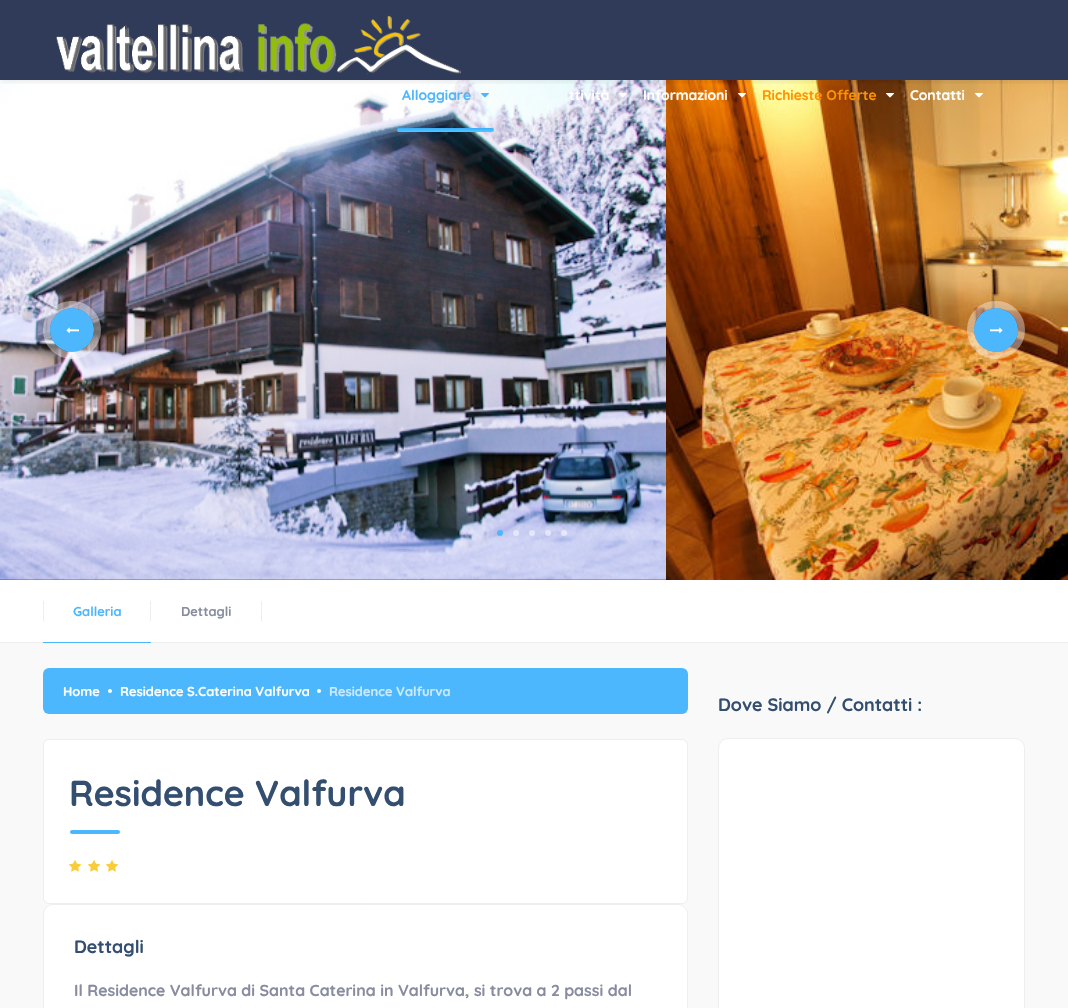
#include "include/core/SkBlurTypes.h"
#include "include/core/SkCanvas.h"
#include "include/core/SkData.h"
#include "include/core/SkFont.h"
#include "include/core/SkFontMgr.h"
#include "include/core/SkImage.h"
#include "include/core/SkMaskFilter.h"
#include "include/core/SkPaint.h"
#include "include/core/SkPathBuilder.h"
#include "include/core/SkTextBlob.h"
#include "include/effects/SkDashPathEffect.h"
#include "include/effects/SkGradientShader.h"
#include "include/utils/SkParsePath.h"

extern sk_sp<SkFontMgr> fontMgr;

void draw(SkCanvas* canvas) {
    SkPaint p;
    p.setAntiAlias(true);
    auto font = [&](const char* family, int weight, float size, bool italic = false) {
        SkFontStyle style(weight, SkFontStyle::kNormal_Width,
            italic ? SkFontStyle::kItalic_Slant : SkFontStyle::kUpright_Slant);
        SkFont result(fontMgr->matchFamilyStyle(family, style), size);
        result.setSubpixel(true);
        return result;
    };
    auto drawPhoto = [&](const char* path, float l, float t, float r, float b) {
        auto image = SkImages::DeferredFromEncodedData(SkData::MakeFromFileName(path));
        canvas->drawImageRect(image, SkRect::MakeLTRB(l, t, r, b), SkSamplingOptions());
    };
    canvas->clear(0xFF2F3B59);
    p.setColor(0xFF24324F);
    canvas->drawRect(SkRect::MakeLTRB(0, 579, 666, 580), p);
    drawPhoto("media/7.png", 0, 80, 666, 580);
    drawPhoto("media/8.png", 666, 80, 1068, 580);
    canvas->save();
    canvas->clipRect(SkRect::MakeLTRB(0, 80, 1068, 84));
    p.setColor(0x1F000000);
    p.setMaskFilter(SkMaskFilter::MakeBlur(kNormal_SkBlurStyle, 4));
    canvas->drawRect(SkRect::MakeLTRB(0, 0, 1068, 80), p);
    p.setMaskFilter(nullptr);
    canvas->restore();
    drawPhoto("media/1.png", 56, 15, 462, 75);
    p.setColor(0xFFFFFFFF);
    canvas->drawRect(SkRect::MakeLTRB(381, 96, 382, 97), p);
    auto font1 = font("Quicksand", 700, 14);
    p.setColor(0xFF4DB7FE);
    canvas->drawString("Alloggiare", 402, 100, font1, p);
    drawPhoto("media/2.png", 481, 93, 489, 98);
    {
        const SkColor colors[] = {0xFF3EAAFD, 0xFF49CEFF};
        const float stops[] = {0, 1};
        const SkPoint ends[] = {{446, 128}, {446, 132}};
        p.setShader(SkGradientShader::MakeLinear(ends, colors, stops, 2, SkTileMode::kClamp));
        p.setAlpha(255);
    }
    canvas->drawRoundRect(SkRect::MakeLTRB(397, 128, 494, 132), 2, 2, p);
    p.setShader(nullptr);
    p.setColor(0xFFFFFFFF);
    canvas->drawString("ttività", 569, 100, font1, p);
    drawPhoto("media/3.png", 619, 93, 627, 98);
    canvas->drawString("Informazioni", 643, 100, font1, p);
    drawPhoto("media/4.png", 738, 93, 746, 98);
    p.setColor(0xFFFF9201);
    canvas->drawString("Richieste Offerte", 762, 100, font1, p);
    drawPhoto("media/5.png", 886, 93, 894, 98);
    p.setColor(0xFFFFFFFF);
    canvas->drawString("Contatti", 910, 100, font1, p);
    drawPhoto("media/6.png", 975, 93, 983, 98);
    canvas->drawRect(SkRect::MakeLTRB(0, 580, 1068, 642), p);
    p.setColor(0xFF4DB7FE);
    canvas->drawCircle(500, 533, 3, p);
    p.setColor(0x82FFFFFF);
    canvas->drawCircle(516, 533, 3, p);
    canvas->drawCircle(532, 533, 3, p);
    canvas->drawCircle(548, 533, 3, p);
    canvas->drawCircle(564, 533, 3, p);
    p.setStyle(SkPaint::kStroke_Style);
    p.setStrokeWidth(7);
    p.setColor(0x66FFFFFF);
    canvas->drawCircle(72, 330, 25.5f, p);
    p.setStyle(SkPaint::kFill_Style);
    p.setColor(0xFF4DB7FE);
    canvas->drawCircle(72, 330, 22, p);
    drawPhoto("media/9.png", 66, 327, 79, 334);
    p.setStyle(SkPaint::kStroke_Style);
    p.setColor(0x66FFFFFF);
    canvas->drawCircle(996, 330, 25.5f, p);
    p.setStyle(SkPaint::kFill_Style);
    p.setColor(0xFF4DB7FE);
    canvas->drawCircle(996, 330, 22, p);
    drawPhoto("media/10.png", 990, 327, 1003, 334);
    p.setColor(0xFFEEEEEE);
    canvas->drawRect(SkRect::MakeLTRB(0, 642, 1068, 643), p);
    canvas->drawRect(SkRect::MakeLTRB(43, 601, 44, 621), p);
    auto font2 = font("Quicksand", 700, 13);
    p.setColor(0xFF4DB7FE);
    canvas->drawString("Galleria", 73, 616, font2, p);
    canvas->drawRect(SkRect::MakeLTRB(43, 642, 151, 643), p);
    p.setColor(0xFFEEEEEE);
    canvas->drawRect(SkRect::MakeLTRB(150, 601, 151, 621), p);
    p.setColor(0xFF878C9F);
    canvas->drawString("Dettagli", 181, 616, font2, p);
    p.setColor(0xFFEEEEEE);
    canvas->drawRect(SkRect::MakeLTRB(261, 601, 262, 621), p);
    p.setColor(0xFFF9F9F9);
    canvas->drawRect(SkRect::MakeLTRB(0, 643, 1068, 1008), p);
    p.setColor(0xFF4DB7FE);
    canvas->drawRoundRect(SkRect::MakeLTRB(43, 668, 688, 714), 6, 6, p);
    p.setColor(0xFFFFFFFF);
    canvas->drawString("Home", 63, 696, font2, p);
    canvas->drawCircle(110, 691, 2, p);
    canvas->drawString("Residence S.Caterina Valfurva", 120, 696, font2, p);
    canvas->drawCircle(319, 691, 2, p);
    p.setColor(0xFFCBEAFF);
    canvas->drawString("Residence Valfurva", 329, 696, font2, p);
    p.setColor(0xFFFFFFFF);
    canvas->drawRoundRect(SkRect::MakeLTRB(43.5f, 739.5f, 687.5f, 903.5f), 5.5f, 5.5f, p);
    p.setStyle(SkPaint::kStroke_Style);
    p.setStrokeWidth(1);
    p.setColor(0xFFEEEEEE);
    canvas->drawRoundRect(SkRect::MakeLTRB(43.5f, 739.5f, 687.5f, 903.5f), 5.5f, 5.5f, p);
    auto font3 = font("Quicksand", 700, 36);
    p.setStyle(SkPaint::kFill_Style);
    p.setColor(0xFF334E6F);
    canvas->drawString("Residence Valfurva", 69, 806, font3, p);
    p.setColor(0xFF4DB7FE);
    canvas->drawRoundRect(SkRect::MakeLTRB(70, 830, 120, 834), 2, 2, p);
    drawPhoto("media/11.png", 69, 860, 81, 872);
    drawPhoto("media/11.png", 88, 860, 100, 872);
    drawPhoto("media/11.png", 106, 860, 118, 872);
    p.setColor(0xFFFFFFFF);
    canvas->drawRoundRect(SkRect::MakeLTRB(43.5f, 904.5f, 687.5f, 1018.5f), 9.5f, 9.5f, p);
    p.setStyle(SkPaint::kStroke_Style);
    p.setColor(0xFFEEEEEE);
    canvas->drawRoundRect(SkRect::MakeLTRB(43.5f, 904.5f, 687.5f, 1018.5f), 9.5f, 9.5f, p);
    auto font4 = font("Quicksand", 700, 18);
    p.setStyle(SkPaint::kFill_Style);
    p.setColor(0xFF334E6F);
    canvas->drawString("Dettagli", 74, 953, font4, p);
    auto font5 = font("Quicksand", 700, 16);
    p.setColor(0xFF878C9F);
    canvas->drawString("Il Residence Valfurva di Santa Caterina in Valfurva, si trova a 2 passi dal", 74, 996, font5, p);
    p.setColor(0xFF334E6F);
    canvas->drawString("Dove Siamo / Contatti :", 718, 711, font4, p);
    p.setColor(0xFFFFFFFF);
    canvas->drawRoundRect(SkRect::MakeLTRB(718.5f, 738.5f, 1024.5f, 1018.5f), 9.5f, 9.5f, p);
    p.setStyle(SkPaint::kStroke_Style);
    p.setColor(0xFFEEEEEE);
    canvas->drawRoundRect(SkRect::MakeLTRB(718.5f, 738.5f, 1024.5f, 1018.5f), 9.5f, 9.5f, p);
}
